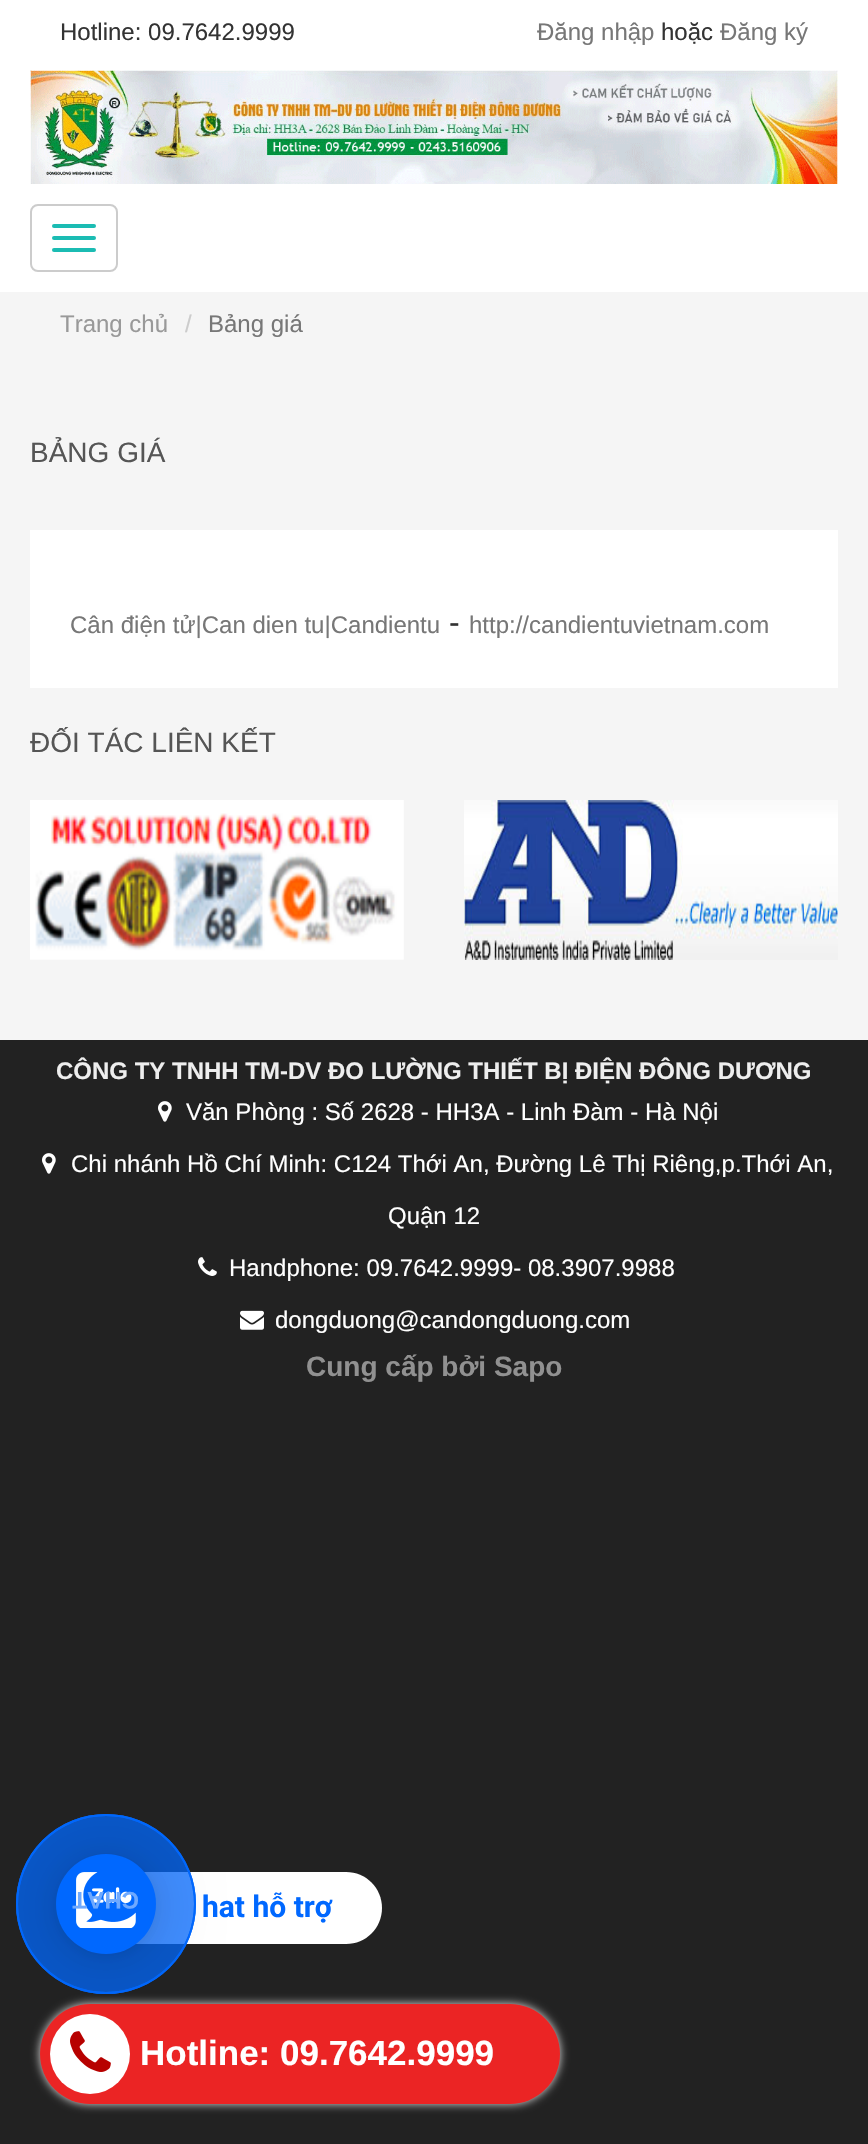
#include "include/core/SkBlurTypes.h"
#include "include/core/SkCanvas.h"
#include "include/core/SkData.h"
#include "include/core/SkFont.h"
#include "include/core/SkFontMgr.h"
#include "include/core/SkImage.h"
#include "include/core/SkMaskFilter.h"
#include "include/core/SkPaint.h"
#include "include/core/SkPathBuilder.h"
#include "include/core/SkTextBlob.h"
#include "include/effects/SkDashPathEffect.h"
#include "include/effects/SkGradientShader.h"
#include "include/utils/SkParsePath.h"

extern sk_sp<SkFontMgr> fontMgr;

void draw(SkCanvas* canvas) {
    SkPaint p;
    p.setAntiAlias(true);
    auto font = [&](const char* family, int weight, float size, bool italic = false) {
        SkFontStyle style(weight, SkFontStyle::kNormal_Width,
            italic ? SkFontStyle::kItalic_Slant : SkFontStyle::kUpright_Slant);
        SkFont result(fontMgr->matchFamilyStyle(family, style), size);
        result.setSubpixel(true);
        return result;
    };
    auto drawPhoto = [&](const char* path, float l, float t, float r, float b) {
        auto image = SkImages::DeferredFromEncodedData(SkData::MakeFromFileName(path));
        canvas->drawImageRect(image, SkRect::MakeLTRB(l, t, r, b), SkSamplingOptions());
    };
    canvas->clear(0xFF222222);
    p.setColor(0xFFF5F5F5);
    canvas->drawRect(SkRect::MakeLTRB(0, 292, 868, 1040), p);
    p.setColor(0xFFFFFFFF);
    canvas->drawRect(SkRect::MakeLTRB(0, 0, 868, 292), p);
    auto font1 = font("Liberation Sans", 400, 24);
    p.setColor(0xFF333333);
    canvas->drawString("Hotline: 09.7642.9999", 60, 40, font1, p);
    p.setColor(0xFF777777);
    canvas->drawString("Đăng nhập", 537, 40, font1, p);
    p.setColor(0xFF333333);
    canvas->drawString("hoặc", 661, 40, font1, p);
    p.setColor(0xFF777777);
    canvas->drawString("Đăng ký", 720, 40, font1, p);
    drawPhoto("media/1.png", 30, 70, 838, 184);
    p.setStyle(SkPaint::kStroke_Style);
    p.setStrokeWidth(2);
    p.setColor(0xFFCCCCCC);
    canvas->drawRoundRect(SkRect::MakeLTRB(31, 205, 117, 271), 7, 7, p);
    p.setStyle(SkPaint::kFill_Style);
    p.setColor(0xFF1BBCB3);
    canvas->drawRoundRect(SkRect::MakeLTRB(52, 224, 96, 228), 2, 2, p);
    canvas->drawRoundRect(SkRect::MakeLTRB(52, 236, 96, 240), 2, 2, p);
    canvas->drawRoundRect(SkRect::MakeLTRB(52, 248, 96, 252), 2, 2, p);
    p.setColor(0xFF999999);
    canvas->drawString("Trang chủ", 60, 332, font1, p);
    p.setColor(0xFFCCCCCC);
    canvas->drawString("/", 185, 332, font1, p);
    p.setColor(0xFF777777);
    canvas->drawString("Bảng giá", 208, 332, font1, p);
    auto font2 = font("Liberation Sans", 400, 28);
    p.setColor(0xFF555555);
    canvas->drawString("BẢNG GIÁ", 30, 462, font2, p);
    p.setColor(0xFFFFFFFF);
    canvas->drawRect(SkRect::MakeLTRB(30, 530, 838, 688), p);
    p.setColor(0xFF777777);
    canvas->drawString("Cân điện tử|Can dien tu|Candientu", 70, 633, font1, p);
    auto font3 = font("Liberation Sans", 400, 32);
    p.setColor(0xFF333333);
    canvas->drawString("-", 449, 633, font3, p);
    p.setColor(0xFF777777);
    canvas->drawString("http://candientuvietnam.com", 469, 633, font1, p);
    p.setColor(0xFF555555);
    canvas->drawString("ĐỐI TÁC LIÊN KẾT", 30, 752, font2, p);
    drawPhoto("media/2.png", 30, 800, 404, 960);
    drawPhoto("media/3.png", 464, 800, 838, 960);
    auto font4 = font("Liberation Sans", 700, 24);
    p.setColor(0xFFEEEEEE);
    canvas->drawString("CÔNG TY TNHH TM-DV ĐO LƯỜNG THIẾT BỊ ĐIỆN ĐÔNG DƯƠNG", 56, 1079, font4, p);
    drawPhoto("media/4.png", 158, 1101, 172, 1122);
    p.setColor(0xFFFFFFFF);
    canvas->drawString("Văn Phòng : Số 2628 - HH3A - Linh Đàm - Hà Nội", 186, 1120, font1, p);
    drawPhoto("media/4.png", 42, 1153, 56, 1174);
    canvas->drawString("Chi nhánh Hồ Chí Minh: C124 Thới An, Đường Lê Thị Riêng,p.Thới An,", 71, 1172, font1, p);
    canvas->drawString("Quận 12", 388, 1224, font1, p);
    drawPhoto("media/5.png", 198, 1257, 217, 1276);
    canvas->drawString("Handphone: 09.7642.9999- 08.3907.9988", 229, 1276, font1, p);
    drawPhoto("media/6.png", 240, 1310, 264, 1330);
    canvas->drawString("dongduong@candongduong.com", 275, 1328, font1, p);
    auto font5 = font("Liberation Sans", 700, 28);
    p.setColor(0xFF919191);
    canvas->drawString("Cung cấp bởi Sapo", 306, 1376, font5, p);
    p.setColor(0xFFFFFFFF);
    canvas->drawPath(SkPathBuilder().moveTo(132, 1872).lineTo(346, 1872).cubicTo(366, 1872, 382, 1888, 382, 1908).cubicTo(382, 1928, 366, 1944, 346, 1944).lineTo(132, 1944).close().detach(), p);
    p.setColor(0x800068FF);
    canvas->drawCircle(106, 1904, 89, p);
    p.setStyle(SkPaint::kStroke_Style);
    p.setColor(0xFF0068FF);
    canvas->drawCircle(106, 1904, 89, p);
    p.setStyle(SkPaint::kFill_Style);
    p.setColor(0x800068FF);
    canvas->drawCircle(106, 1904, 89, p);
    p.setStyle(SkPaint::kStroke_Style);
    p.setColor(0xFF0068FF);
    canvas->drawCircle(106, 1904, 89, p);
    p.setStyle(SkPaint::kFill_Style);
    p.setColor(0x29000000);
    p.setMaskFilter(SkMaskFilter::MakeBlur(kNormal_SkBlurStyle, 32));
    canvas->drawRoundRect(SkRect::MakeLTRB(56, 1858, 156, 1958), 50, 50, p);
    p.setMaskFilter(nullptr);
    p.setColor(0x0F000000);
    p.setMaskFilter(SkMaskFilter::MakeBlur(kNormal_SkBlurStyle, 6));
    canvas->drawRoundRect(SkRect::MakeLTRB(56, 1856, 156, 1956), 50, 50, p);
    p.setMaskFilter(nullptr);
    p.setColor(0xFF0068FF);
    canvas->drawCircle(106, 1904, 50, p);
    drawPhoto("media/7.png", 76, 1872, 136, 1928);
    p.setColor(0xFF6EA9FF);
    canvas->save();
    canvas->rotate(180, 139, 1892);
    canvas->drawString("CHAT", 139, 1892, font4, p);
    canvas->restore();
    auto font6 = font("Roboto", 700, 30);
    p.setColor(0xFF0068FF);
    canvas->drawString("hat hỗ trợ", 202, 1917, font6, p);
    p.setColor(0xFFDDDDDD);
    p.setMaskFilter(SkMaskFilter::MakeBlur(kNormal_SkBlurStyle, 5));
    canvas->drawRoundRect(SkRect::MakeLTRB(40, 2004, 560, 2104), 50, 50, p);
    p.setMaskFilter(nullptr);
    p.setColor(0xFFEB2424);
    canvas->drawRoundRect(SkRect::MakeLTRB(40, 2004, 560, 2104), 50, 50, p);
    p.setColor(0xFFFFFFFF);
    canvas->drawCircle(90, 2054, 40, p);
    drawPhoto("media/8.png", 70, 2031, 111, 2072);
    auto font7 = font("Liberation Sans", 700, 35);
    canvas->drawString("Hotline: 09.7642.9999", 140, 2065, font7, p);
}
